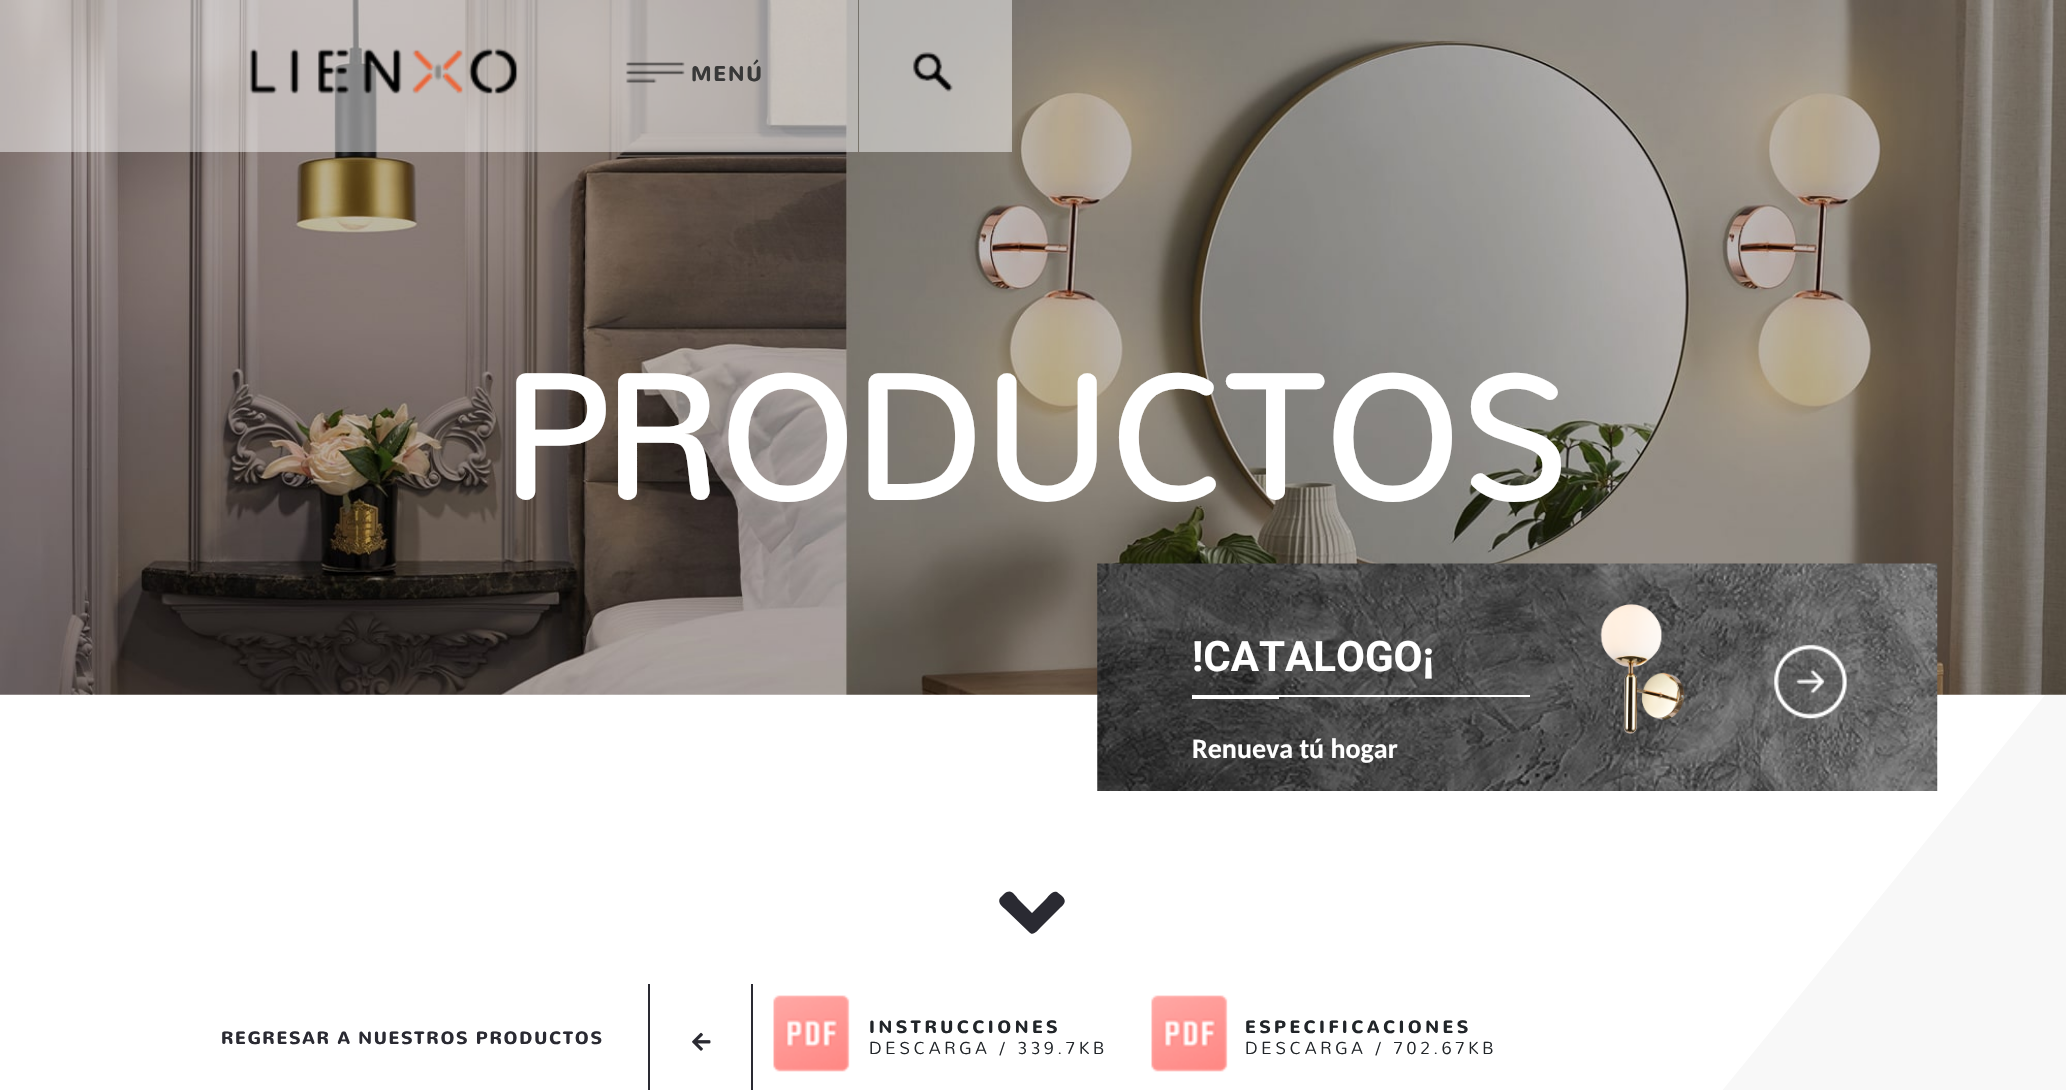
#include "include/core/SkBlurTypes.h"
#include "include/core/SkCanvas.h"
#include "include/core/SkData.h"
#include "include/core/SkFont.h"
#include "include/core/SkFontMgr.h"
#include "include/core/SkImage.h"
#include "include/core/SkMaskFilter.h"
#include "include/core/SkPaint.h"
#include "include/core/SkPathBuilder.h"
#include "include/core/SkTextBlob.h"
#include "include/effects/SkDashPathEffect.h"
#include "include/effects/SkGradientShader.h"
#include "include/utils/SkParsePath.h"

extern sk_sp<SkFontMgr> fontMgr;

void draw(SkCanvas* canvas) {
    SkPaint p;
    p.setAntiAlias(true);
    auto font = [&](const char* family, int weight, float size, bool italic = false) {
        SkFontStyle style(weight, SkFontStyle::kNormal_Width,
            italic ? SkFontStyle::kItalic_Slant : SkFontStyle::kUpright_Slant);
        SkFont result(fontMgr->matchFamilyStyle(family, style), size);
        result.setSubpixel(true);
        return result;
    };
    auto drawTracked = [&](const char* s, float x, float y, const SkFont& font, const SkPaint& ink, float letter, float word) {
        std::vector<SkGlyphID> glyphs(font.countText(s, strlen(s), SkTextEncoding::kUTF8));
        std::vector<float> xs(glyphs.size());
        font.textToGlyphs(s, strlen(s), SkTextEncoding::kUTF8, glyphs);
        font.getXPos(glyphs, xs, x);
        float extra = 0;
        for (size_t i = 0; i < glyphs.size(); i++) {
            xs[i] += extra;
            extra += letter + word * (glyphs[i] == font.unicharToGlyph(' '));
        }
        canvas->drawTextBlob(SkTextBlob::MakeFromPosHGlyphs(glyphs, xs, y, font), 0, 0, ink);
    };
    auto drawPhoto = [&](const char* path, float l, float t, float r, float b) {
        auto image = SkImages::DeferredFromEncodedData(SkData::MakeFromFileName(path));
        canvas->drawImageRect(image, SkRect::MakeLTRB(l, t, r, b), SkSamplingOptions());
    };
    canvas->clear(0xFFFFFFFF);
    drawPhoto("media/11.png", 1723, 694, 2066, 1090);
    drawPhoto("media/4.png", 0, 0, 2066, 695);
    p.setColor(0x7AFFFFFF);
    canvas->drawRect(SkRect::MakeLTRB(0, 0, 429, 152), p);
    canvas->drawRect(SkRect::MakeLTRB(429, 0, 858, 152), p);
    drawPhoto("media/1.png", 249, 48, 518, 94);
    drawPhoto("media/2.png", 626, 62, 685, 83);
    auto font1 = font("Nunito", 900, 21);
    p.setColor(0xFF383838);
    drawTracked("MENÚ", 691, 81, font1, p, 1.75f, 0);
    p.setColor(0x7AFFFFFF);
    canvas->drawRect(SkRect::MakeLTRB(859, 0, 1012, 152), p);
    drawPhoto("media/3.png", 913, 52, 953, 92);
    auto font2 = font("Nunito", 700, 175);
    p.setColor(0xFFFFFFFF);
    canvas->drawString("PRODUCTOS", 501, 500, font2, p);
    drawPhoto("media/5.png", 1097, 563, 1938, 791);
    auto font3 = font("Roboto", 700, 42);
    canvas->drawString("!CATALOGO¡", 1192, 671, font3, p);
    drawPhoto("media/6.png", 1600, 604, 1685, 734);
    drawPhoto("media/7.png", 1774, 644, 1847, 719);
    canvas->drawRect(SkRect::MakeLTRB(1279, 695, 1530, 697), p);
    canvas->drawRect(SkRect::MakeLTRB(1192, 695, 1279, 699), p);
    auto font4 = font("Carlito", 700, 28);
    canvas->drawString("Renueva tú hogar", 1192, 758, font4, p);
    p.setColor(0xFF2A2A32);
    canvas->drawPath(SkPathBuilder().moveTo(1029, 932).lineTo(1005, 909).cubicTo(1003, 907, 997, 903, 1000, 898).lineTo(1004, 894).cubicTo(1011, 888, 1014, 894, 1019, 900).lineTo(1032, 913).lineTo(1045, 900).cubicTo(1048, 897, 1052, 890, 1057, 892).lineTo(1062, 896).cubicTo(1068, 902, 1063, 905, 1059, 909).lineTo(1040, 928).cubicTo(1038, 930, 1033, 937, 1029, 932).close().detach(), p);
    auto font5 = font("Nunito", 900, 17.5f);
    drawTracked("REGRESAR A NUESTROS PRODUCTOS", 221, 1044, font5, p, 1.75f, 0);
    canvas->drawRect(SkRect::MakeLTRB(751, 984, 753, 1090), p);
    canvas->drawRect(SkRect::MakeLTRB(648, 984, 650, 1090), p);
    drawPhoto("media/8.png", 692, 1032, 711, 1051);
    drawPhoto("media/9.png", 773, 995, 850, 1072);
    p.setColor(0xFF212529);
    drawTracked("INSTRUCCIONES", 869, 1033, font5, p, 3.5f, 0);
    auto font6 = font("Nunito", 300, 17.5f);
    drawTracked("DESCARGA / 339.7KB", 869, 1054, font6, p, 3.5f, 0);
    drawPhoto("media/10.png", 1151, 995, 1228, 1072);
    drawTracked("ESPECIFICACIONES", 1245, 1033, font5, p, 3.5f, 0);
    drawTracked("DESCARGA / 702.67KB", 1245, 1054, font6, p, 3.5f, 0);
}
